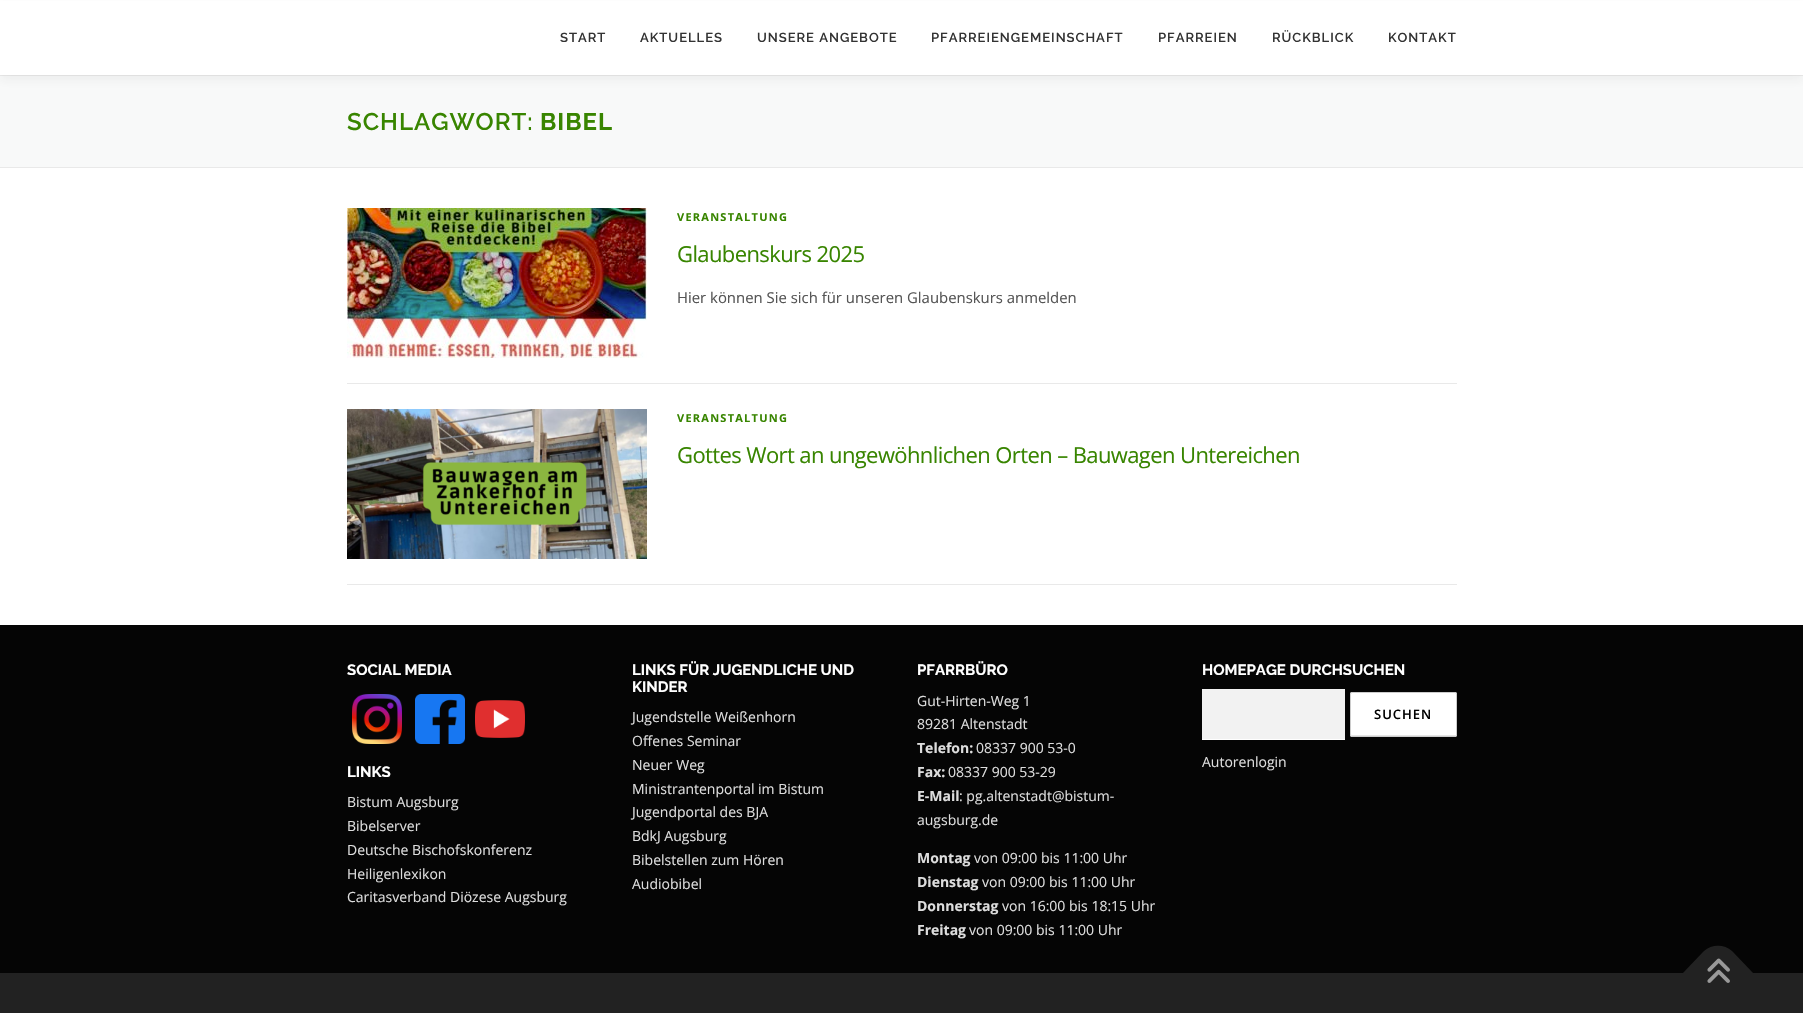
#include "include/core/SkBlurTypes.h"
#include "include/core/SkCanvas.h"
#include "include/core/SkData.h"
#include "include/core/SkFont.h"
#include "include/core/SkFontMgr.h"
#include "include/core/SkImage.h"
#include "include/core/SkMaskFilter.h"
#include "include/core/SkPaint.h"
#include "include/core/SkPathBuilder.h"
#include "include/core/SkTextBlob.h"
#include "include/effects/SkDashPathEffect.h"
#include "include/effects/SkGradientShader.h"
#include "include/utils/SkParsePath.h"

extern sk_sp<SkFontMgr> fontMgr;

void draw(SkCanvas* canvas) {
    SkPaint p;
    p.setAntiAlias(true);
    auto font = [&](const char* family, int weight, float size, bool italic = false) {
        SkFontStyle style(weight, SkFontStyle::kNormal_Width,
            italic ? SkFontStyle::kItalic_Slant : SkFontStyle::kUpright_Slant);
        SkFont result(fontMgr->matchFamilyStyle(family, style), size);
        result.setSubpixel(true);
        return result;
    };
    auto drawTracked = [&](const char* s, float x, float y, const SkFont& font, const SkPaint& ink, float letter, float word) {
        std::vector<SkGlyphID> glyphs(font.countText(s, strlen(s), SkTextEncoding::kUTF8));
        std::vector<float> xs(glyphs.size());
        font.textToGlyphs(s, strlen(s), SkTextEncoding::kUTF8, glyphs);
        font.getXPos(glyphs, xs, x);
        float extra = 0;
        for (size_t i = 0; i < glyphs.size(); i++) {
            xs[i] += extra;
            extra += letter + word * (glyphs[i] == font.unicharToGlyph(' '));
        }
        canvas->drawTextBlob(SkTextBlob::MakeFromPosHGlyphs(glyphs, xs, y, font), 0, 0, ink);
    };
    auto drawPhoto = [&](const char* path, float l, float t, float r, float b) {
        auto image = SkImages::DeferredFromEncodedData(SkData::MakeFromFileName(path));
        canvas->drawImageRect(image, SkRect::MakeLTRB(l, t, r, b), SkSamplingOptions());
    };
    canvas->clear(0xFFFFFFFF);
    p.setColor(0xFFF8F9F9);
    canvas->drawRect(SkRect::MakeLTRB(0, 76, 1803, 167), p);
    p.setColor(0xFFE9E9E9);
    canvas->drawRect(SkRect::MakeLTRB(0, 75, 1803, 76), p);
    p.setColor(0x0F323232);
    p.setMaskFilter(SkMaskFilter::MakeBlur(kNormal_SkBlurStyle, 5));
    canvas->drawRect(SkRect::MakeLTRB(0, 5, 1803, 80), p);
    p.setMaskFilter(nullptr);
    p.setColor(0xFFFFFFFF);
    canvas->drawRect(SkRect::MakeLTRB(0, 1, 1803, 75), p);
    auto font1 = font("Raleway", 600, 13);
    p.setColor(0xFF333333);
    {
        const struct { const char* s; float x, y; } items[] = {
            {"START", 560, 42},
            {"AKTUELLES", 640, 42},
            {"UNSERE ANGEBOTE", 757, 42},
            {"PFARREIENGEMEINSCHAFT", 931, 42},
            {"PFARREIEN", 1158, 42},
            {"RÜCKBLICK", 1272, 42},
            {"KONTAKT", 1388, 42},
        };
        for (auto [s, x, y] : items) {
            drawTracked(s, x, y, font1, p, 1, 0);
        }
    }
    p.setColor(0xFFE9E9E9);
    canvas->drawRect(SkRect::MakeLTRB(0, 167, 1803, 168), p);
    auto font2 = font("Raleway", 600, 24);
    p.setColor(0xFF388500);
    drawTracked("SCHLAGWORT:", 347, 130, font2, p, 1, 0);
    auto font3 = font("Raleway", 700, 24);
    drawTracked("BIBEL", 540, 130, font3, p, 1, 0);
    drawPhoto("media/1.png", 347, 208, 647, 358);
    auto font4 = font("Open Sans", 700, 11);
    drawTracked("VERANSTALTUNG", 677, 221, font4, p, 1.25f, 0);
    auto font5 = font("Open Sans", 400, 22);
    drawTracked("Glaubenskurs 2025", 677, 262, font5, p, -0.6f, 0);
    auto font6 = font("Open Sans", 400, 14.9f);
    p.setColor(0xFF555555);
    canvas->drawString("Hier können Sie sich für unseren Glaubenskurs anmelden", 677, 303, font6, p);
    p.setColor(0xFFE9E9E9);
    canvas->drawRect(SkRect::MakeLTRB(347, 383, 1457, 384), p);
    canvas->drawRect(SkRect::MakeLTRB(347, 584, 1457, 585), p);
    drawPhoto("media/2.png", 347, 409, 647, 559);
    p.setColor(0xFF388500);
    drawTracked("VERANSTALTUNG", 677, 422, font4, p, 1.25f, 0);
    drawTracked("Gottes Wort an ungewöhnlichen Orten – Bauwagen Untereichen", 677, 463, font5, p, -0.6f, 0);
    p.setColor(0xFF050505);
    canvas->drawRect(SkRect::MakeLTRB(0, 625, 1803, 973), p);
    auto font7 = font("Raleway", 700, 15);
    p.setColor(0xFFFFFFFF);
    canvas->drawString("SOCIAL MEDIA", 347, 675, font7, p);
    drawPhoto("media/3.png", 352, 694, 402, 744);
    drawPhoto("media/4.png", 415, 694, 465, 744);
    drawPhoto("media/5.png", 475, 700, 525, 738);
    canvas->drawString("LINKS", 347, 777, font7, p);
    auto font8 = font("Open Sans", 400, 14);
    p.setColor(0xFFDDDDDD);
    {
        const struct { const char* s; float x, y; } items[] = {
            {"Bistum Augsburg", 347, 807},
            {"Bibelserver", 347, 831},
            {"Deutsche Bischofskonferenz", 347, 855},
            {"Heiligenlexikon", 347, 879},
            {"Caritasverband Diözese Augsburg", 347, 902},
        };
        for (auto [s, x, y] : items) {
            canvas->drawString(s, x, y, font8, p);
        }
    }
    p.setColor(0xFFFFFFFF);
    canvas->drawString("LINKS FÜR JUGENDLICHE UND", 632, 675, font7, p);
    canvas->drawString("KINDER", 632, 692, font7, p);
    p.setColor(0xFFDDDDDD);
    {
        const struct { const char* s; float x, y; } items[] = {
            {"Jugendstelle Weißenhorn", 632, 722},
            {"Offenes Seminar", 632, 746},
            {"Neuer Weg", 632, 770},
            {"Ministrantenportal im Bistum", 632, 794},
            {"Jugendportal des BJA", 632, 817},
            {"BdkJ Augsburg", 632, 841},
            {"Bibelstellen zum Hören", 632, 865},
            {"Audiobibel", 632, 889},
        };
        for (auto [s, x, y] : items) {
            canvas->drawString(s, x, y, font8, p);
        }
    }
    p.setColor(0xFFFFFFFF);
    canvas->drawString("PFARRBÜRO", 917, 675, font7, p);
    p.setColor(0xFFDDDDDD);
    canvas->drawString("Gut-Hirten-Weg 1", 917, 706, font8, p);
    canvas->drawString("89281 Altenstadt", 917, 729, font8, p);
    auto font9 = font("Open Sans", 700, 14);
    canvas->drawString("Telefon:", 917, 753, font9, p);
    canvas->drawString("08337 900 53-0", 976, 753, font8, p);
    canvas->drawString("Fax:", 917, 777, font9, p);
    canvas->drawString("08337 900 53-29", 948, 777, font8, p);
    canvas->drawString("E-Mail", 917, 801, font9, p);
    canvas->drawString(": pg.altenstadt@bistum-", 959, 801, font8, p);
    canvas->drawString("augsburg.de", 917, 825, font8, p);
    canvas->drawString("Montag", 917, 863, font9, p);
    canvas->drawString("von 09:00 bis 11:00 Uhr", 974, 863, font8, p);
    canvas->drawString("Dienstag", 917, 887, font9, p);
    canvas->drawString("von 09:00 bis 11:00 Uhr", 982, 887, font8, p);
    canvas->drawString("Donnerstag", 917, 911, font9, p);
    canvas->drawString("von 16:00 bis 18:15 Uhr", 1002, 911, font8, p);
    canvas->drawString("Freitag", 917, 935, font9, p);
    canvas->drawString("von 09:00 bis 11:00 Uhr", 969, 935, font8, p);
    p.setColor(0xFFFFFFFF);
    canvas->drawString("HOMEPAGE DURCHSUCHEN", 1202, 675, font7, p);
    p.setColor(0xFFF2F2F2);
    canvas->drawRect(SkRect::MakeLTRB(1202, 689, 1345, 739), p);
    p.setColor(0xFFFFFFFF);
    canvas->drawRect(SkRect::MakeLTRB(1202, 739, 1345, 740), p);
    canvas->drawRoundRect(SkRect::MakeLTRB(1350, 692, 1457, 737), 2, 2, p);
    p.setColor(0x1A000000);
    canvas->drawPath(SkPathBuilder().moveTo(1351, 734).lineTo(1352, 736).lineTo(1438, 736).cubicTo(1438, 736, 1456, 741, 1456, 734).cubicTo(1456, 735, 1456, 735, 1455, 735).lineTo(1352, 735).cubicTo(1351, 735, 1351, 735, 1351, 734).close().detach(), p);
    p.setStyle(SkPaint::kStroke_Style);
    p.setStrokeWidth(1);
    p.setColor(0xFFCCCCCC);
    canvas->drawRoundRect(SkRect::MakeLTRB(1350.5f, 692.5f, 1456.5f, 736.5f), 1.5f, 1.5f, p);
    auto font10 = font("Open Sans", 600, 13);
    p.setStyle(SkPaint::kFill_Style);
    p.setColor(0xFF000000);
    drawTracked("SUCHEN", 1374, 719, font10, p, 1, 0);
    p.setColor(0xFFDDDDDD);
    canvas->drawString("Autorenlogin", 1202, 767, font8, p);
    p.setColor(0xFF222222);
    canvas->drawRect(SkRect::MakeLTRB(0, 973, 1803, 1013), p);
    canvas->drawPath(SkPathBuilder().moveTo(1683, 973).lineTo(1704, 951).cubicTo(1712, 944, 1724, 944, 1732, 951).lineTo(1753, 973).lineTo(1718, 1008).close().detach(), p);
    drawPhoto("media/6.png", 1707, 958, 1730, 983);
}
